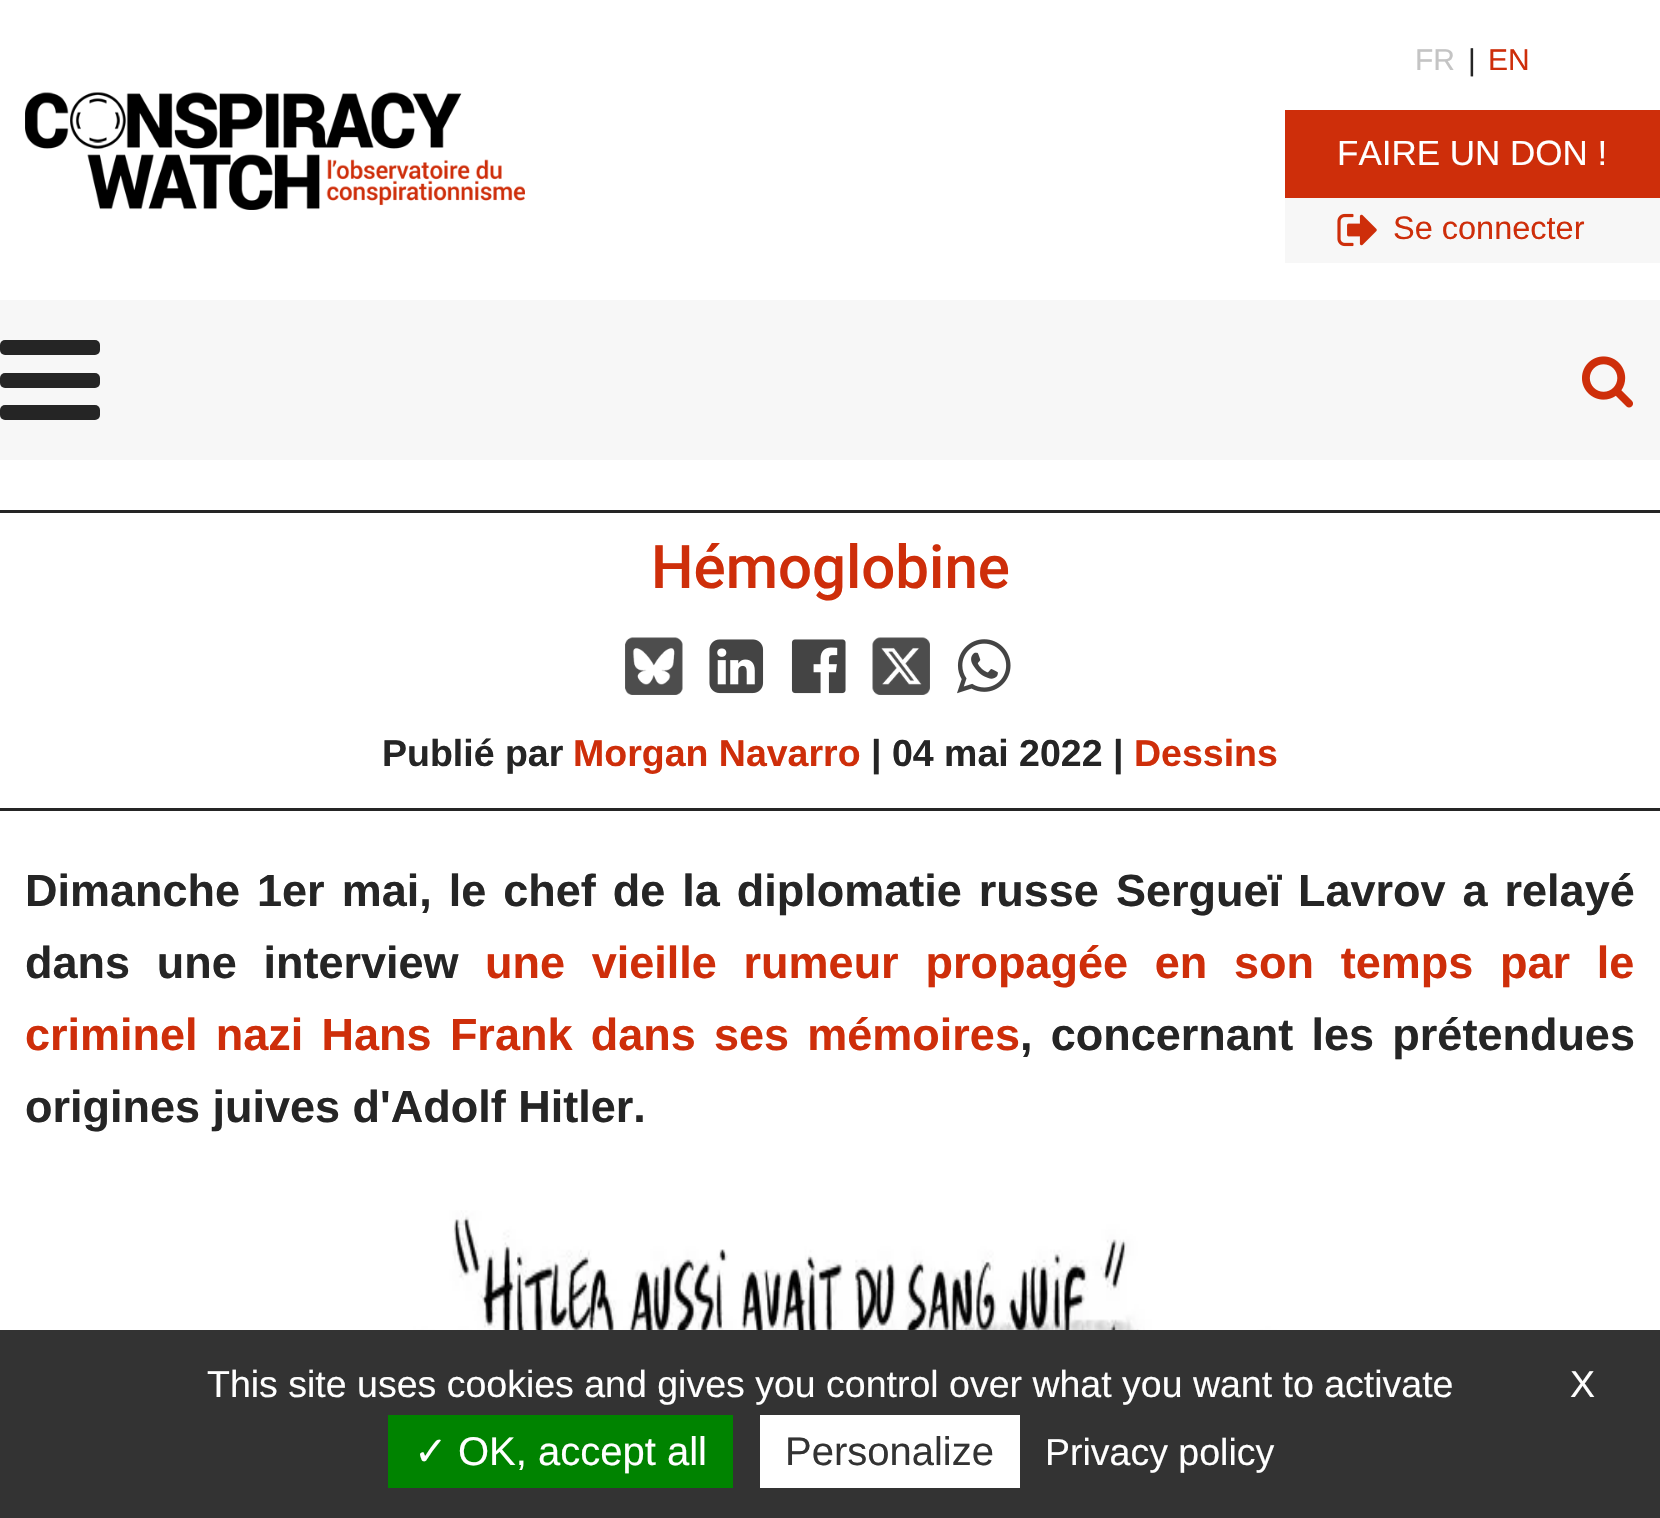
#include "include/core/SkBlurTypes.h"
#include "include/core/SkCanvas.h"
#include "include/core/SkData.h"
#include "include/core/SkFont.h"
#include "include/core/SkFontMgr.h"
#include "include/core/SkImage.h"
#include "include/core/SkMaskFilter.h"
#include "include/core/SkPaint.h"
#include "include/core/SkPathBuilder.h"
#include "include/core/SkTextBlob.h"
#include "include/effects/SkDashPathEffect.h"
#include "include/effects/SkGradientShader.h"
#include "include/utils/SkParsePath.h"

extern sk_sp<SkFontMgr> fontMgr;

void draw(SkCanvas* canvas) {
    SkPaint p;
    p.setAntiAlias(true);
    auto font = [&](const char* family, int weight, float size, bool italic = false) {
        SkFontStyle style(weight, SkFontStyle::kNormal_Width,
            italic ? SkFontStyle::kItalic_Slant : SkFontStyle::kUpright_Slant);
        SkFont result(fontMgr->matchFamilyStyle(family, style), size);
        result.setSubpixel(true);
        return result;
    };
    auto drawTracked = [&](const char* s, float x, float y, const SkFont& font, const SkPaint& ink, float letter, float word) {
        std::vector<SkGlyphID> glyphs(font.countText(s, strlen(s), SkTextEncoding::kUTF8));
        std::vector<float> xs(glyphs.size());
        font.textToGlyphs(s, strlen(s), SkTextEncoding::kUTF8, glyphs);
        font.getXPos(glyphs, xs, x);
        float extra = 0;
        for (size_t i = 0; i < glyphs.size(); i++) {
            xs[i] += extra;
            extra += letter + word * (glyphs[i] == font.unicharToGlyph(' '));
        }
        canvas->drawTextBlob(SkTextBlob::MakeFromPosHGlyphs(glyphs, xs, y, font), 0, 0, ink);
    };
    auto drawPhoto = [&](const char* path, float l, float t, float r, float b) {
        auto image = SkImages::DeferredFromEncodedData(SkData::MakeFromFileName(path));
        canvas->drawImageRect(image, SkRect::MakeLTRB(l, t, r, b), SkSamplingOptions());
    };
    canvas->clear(0xFFFFFFFF);
    drawPhoto("media/1.png", 25, 92, 525, 210);
    auto font1 = font("Liberation Sans", 400, 30);
    p.setColor(0xFFC4C4C4);
    canvas->drawString("FR", 1415, 70, font1, p);
    p.setColor(0xFF252525);
    canvas->drawString("|", 1468, 70, font1, p);
    p.setColor(0xFFCE2E0A);
    canvas->drawString("EN", 1488, 70, font1, p);
    canvas->drawRect(SkRect::MakeLTRB(1285, 110, 1660, 198), p);
    auto font2 = font("Liberation Sans", 400, 35);
    p.setColor(0xFFFFFFFF);
    canvas->drawString("FAIRE UN DON !", 1337, 165, font2, p);
    p.setColor(0xFFF7F7F7);
    canvas->drawRect(SkRect::MakeLTRB(1285, 198, 1660, 263), p);
    drawPhoto("media/2.png", 1337, 213, 1377, 247);
    auto font3 = font("Liberation Sans", 400, 32.5f);
    p.setColor(0xFFCE2E0A);
    canvas->drawString("Se connecter", 1393, 239, font3, p);
    p.setColor(0xFFF7F7F7);
    canvas->drawRect(SkRect::MakeLTRB(0, 300, 1660, 460), p);
    p.setColor(0xFF252525);
    canvas->drawRoundRect(SkRect::MakeLTRB(0, 340, 100, 355), 5, 5, p);
    canvas->drawRoundRect(SkRect::MakeLTRB(0, 373, 100, 388), 5, 5, p);
    canvas->drawRoundRect(SkRect::MakeLTRB(0, 405, 100, 420), 5, 5, p);
    drawPhoto("media/3.png", 1582, 356, 1633, 408);
    canvas->drawRect(SkRect::MakeLTRB(0, 510, 1660, 513), p);
    auto font4 = font("Roboto", 500, 60);
    p.setColor(0xFFCE2E0A);
    canvas->drawString("Hémoglobine", 651, 588, font4, p);
    drawPhoto("media/4.png", 625, 637, 683, 695);
    drawPhoto("media/5.png", 709, 639, 764, 694);
    drawPhoto("media/6.png", 791, 639, 846, 694);
    drawPhoto("media/7.png", 872, 637, 930, 695);
    drawPhoto("media/8.png", 957, 639, 1011, 694);
    p.setColor(0xFF252525);
    canvas->drawRect(SkRect::MakeLTRB(0, 808, 1660, 811), p);
    auto font5 = font("Liberation Sans", 700, 37.5f);
    canvas->drawString("Publié par", 382, 766, font5, p);
    p.setColor(0xFFCE2E0A);
    canvas->drawString("Morgan Navarro", 573, 766, font5, p);
    p.setColor(0xFF252525);
    canvas->drawString("| 04 mai 2022 |", 871, 766, font5, p);
    p.setColor(0xFFCE2E0A);
    canvas->drawString("Dessins", 1134, 766, font5, p);
    auto font6 = font("Liberation Sans", 700, 45);
    p.setColor(0xFF252525);
    drawTracked("Dimanche 1er mai, le chef de la diplomatie russe Sergueï Lavrov a relayé", 25, 906, font6, p, 0, 4.5f);
    drawTracked("dans une interview", 25, 978, font6, p, 0, 14.25f);
    p.setColor(0xFFCE2E0A);
    drawTracked("une vieille rumeur propagée en son temps par le", 485, 978, font6, p, 0, 14.25f);
    drawTracked("criminel nazi Hans Frank dans ses mémoires", 25, 1050, font6, p, 0, 5.75f);
    p.setColor(0xFF252525);
    drawTracked(", concernant les prétendues", 1020, 1050, font6, p, 0, 5.75f);
    canvas->drawString("origines juives d'Adolf Hitler.", 25, 1122, font6, p);
    drawPhoto("media/9.png", 276, 1210, 1347, 1330);
    p.setColor(0xFF333333);
    canvas->drawRect(SkRect::MakeLTRB(0, 1330, 1660, 1518), p);
    auto font7 = font("Liberation Sans", 400, 37.5f);
    p.setColor(0xFFFFFFFF);
    canvas->drawString("This site uses cookies and gives you control over what you want to activate", 207, 1397, font7, p);
    canvas->drawString("X", 1570, 1397, font7, p);
    p.setColor(0xFF008300);
    canvas->drawRect(SkRect::MakeLTRB(388, 1415, 733, 1488), p);
    auto font8 = font("DejaVu Sans", 400, 40);
    p.setColor(0xFFFFFFFF);
    canvas->drawString("✓", 414, 1465, font8, p);
    auto font9 = font("Liberation Sans", 400, 40);
    canvas->drawString("OK, accept all", 458, 1465, font9, p);
    canvas->drawRect(SkRect::MakeLTRB(760, 1415, 1020, 1488), p);
    p.setColor(0xFF333333);
    canvas->drawString("Personalize", 785, 1465, font9, p);
    p.setColor(0xFFFFFFFF);
    canvas->drawString("Privacy policy", 1045, 1465, font7, p);
}
